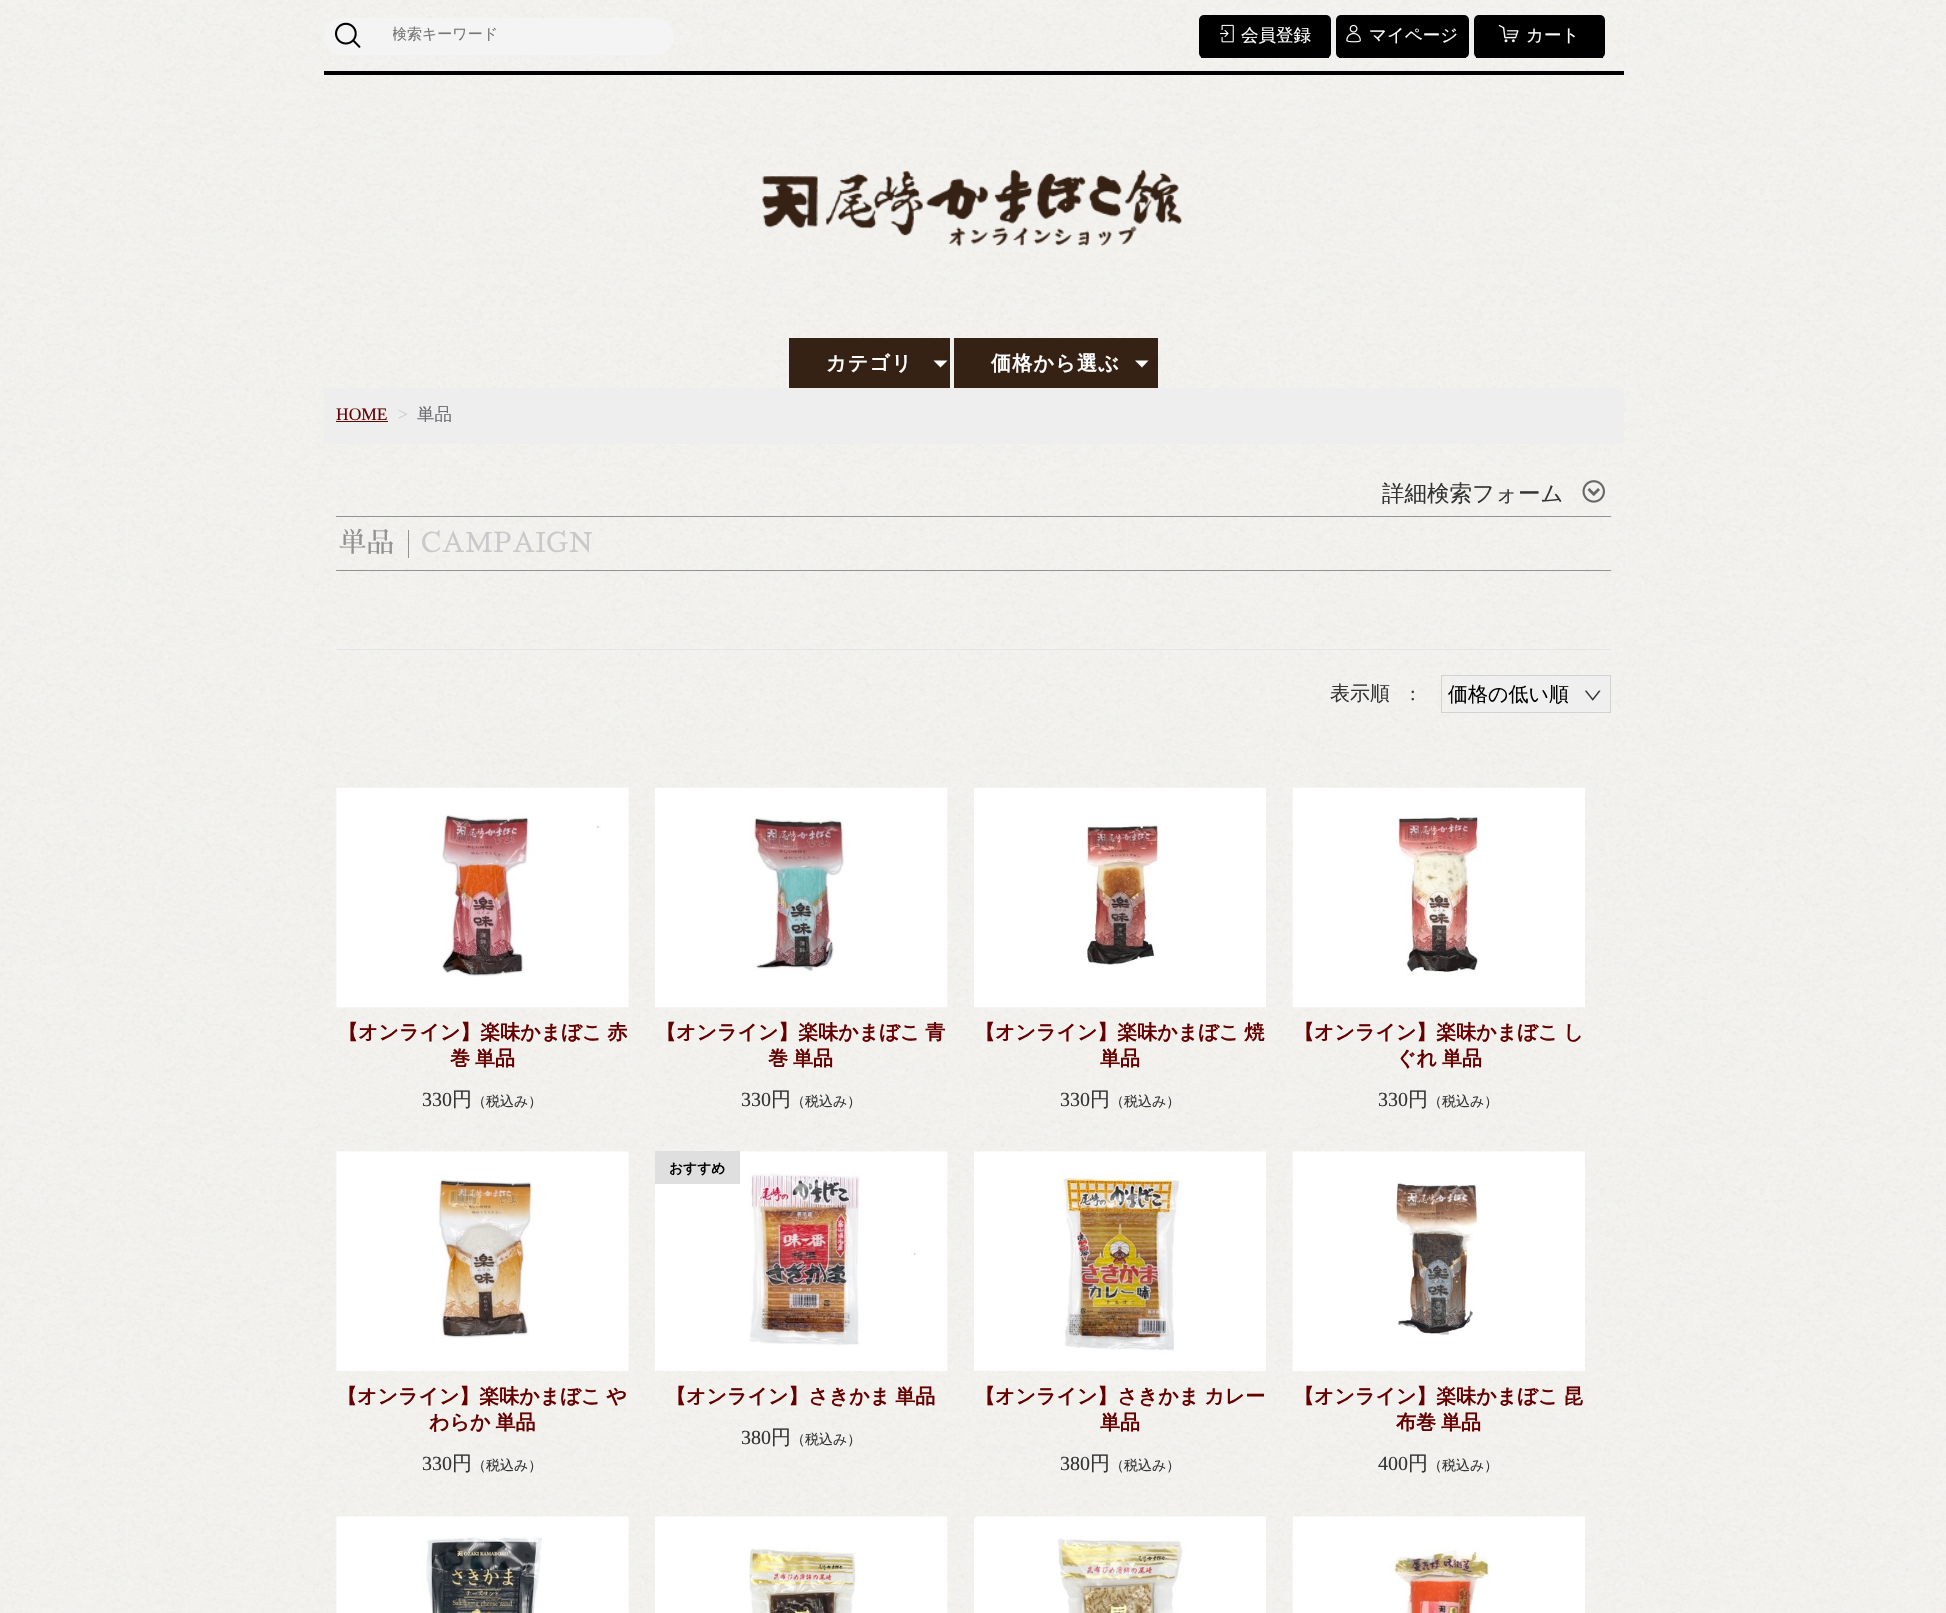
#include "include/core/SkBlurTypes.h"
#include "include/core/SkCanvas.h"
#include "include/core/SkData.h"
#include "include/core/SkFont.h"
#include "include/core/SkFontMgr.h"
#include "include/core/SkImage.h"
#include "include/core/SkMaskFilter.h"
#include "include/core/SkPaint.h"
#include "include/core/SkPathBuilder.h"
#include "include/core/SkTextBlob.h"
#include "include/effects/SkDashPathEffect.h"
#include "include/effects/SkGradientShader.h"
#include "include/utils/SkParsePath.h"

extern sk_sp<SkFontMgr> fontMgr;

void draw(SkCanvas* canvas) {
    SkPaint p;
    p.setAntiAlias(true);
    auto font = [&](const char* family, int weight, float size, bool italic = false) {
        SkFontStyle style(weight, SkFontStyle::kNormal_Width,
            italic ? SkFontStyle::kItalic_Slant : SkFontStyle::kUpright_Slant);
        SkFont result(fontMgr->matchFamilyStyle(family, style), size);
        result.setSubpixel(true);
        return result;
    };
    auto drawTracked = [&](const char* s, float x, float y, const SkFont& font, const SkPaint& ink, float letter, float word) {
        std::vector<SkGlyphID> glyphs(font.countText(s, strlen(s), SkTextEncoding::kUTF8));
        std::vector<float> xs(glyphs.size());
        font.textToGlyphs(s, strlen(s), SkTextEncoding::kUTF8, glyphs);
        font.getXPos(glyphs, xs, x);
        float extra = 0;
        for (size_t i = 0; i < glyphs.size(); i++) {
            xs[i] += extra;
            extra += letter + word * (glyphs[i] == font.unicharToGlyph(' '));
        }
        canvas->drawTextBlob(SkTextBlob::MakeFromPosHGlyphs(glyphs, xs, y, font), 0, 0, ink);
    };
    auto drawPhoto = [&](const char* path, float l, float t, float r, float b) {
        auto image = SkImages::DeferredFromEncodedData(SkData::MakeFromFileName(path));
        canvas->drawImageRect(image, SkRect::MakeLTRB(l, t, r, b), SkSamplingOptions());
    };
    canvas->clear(0xFFFFFFFF);
    drawPhoto("media/1.png", 0, 0, 1946, 1613);
    p.setColor(0xFF000000);
    canvas->drawRect(SkRect::MakeLTRB(324, 71, 1624, 75), p);
    p.setColor(0xFFF4F4F4);
    canvas->drawRoundRect(SkRect::MakeLTRB(324, 18, 674, 55), 18.5f, 18.5f, p);
    drawPhoto("media/2.png", 334, 22, 361, 48);
    canvas->save();
    canvas->clipRect(SkRect::MakeLTRB(393, 25, 668, 46));
    auto font1 = font("WenQuanYi Zen Hei", 500, 15);
    p.setColor(0xFF757575);
    canvas->drawString("検索キーワード", 392, 39, font1, p);
    canvas->restore();
    p.setColor(0xFF000000);
    canvas->drawRoundRect(SkRect::MakeLTRB(1199, 15, 1331, 58), 5, 5, p);
    canvas->drawRect(SkRect::MakeLTRB(1201, 57, 1329, 58), p);
    drawPhoto("media/3.png", 1220, 24, 1234, 43);
    auto font2 = font("WenQuanYi Zen Hei", 500, 17.5f);
    p.setColor(0xFFFFFFFF);
    canvas->drawString("会員登録", 1241, 41, font2, p);
    p.setColor(0xFF000000);
    canvas->drawRoundRect(SkRect::MakeLTRB(1336, 15, 1469, 58), 5, 5, p);
    canvas->drawRect(SkRect::MakeLTRB(1339, 57, 1466, 58), p);
    drawPhoto("media/4.png", 1346, 24, 1361, 43);
    p.setColor(0xFFFFFFFF);
    canvas->drawString("マイページ", 1369, 41, font2, p);
    p.setColor(0xFF000000);
    canvas->drawRoundRect(SkRect::MakeLTRB(1474, 15, 1605, 58), 5, 5, p);
    canvas->drawRect(SkRect::MakeLTRB(1476, 57, 1603, 58), p);
    drawPhoto("media/5.png", 1498, 24, 1519, 43);
    p.setColor(0xFFFFFFFF);
    canvas->drawString("カート", 1526, 41, font2, p);
    p.setColor(0xFF362214);
    canvas->drawRect(SkRect::MakeLTRB(789, 338, 950, 388), p);
    auto font3 = font("WenQuanYi Zen Hei", 700, 20);
    p.setColor(0xFFFFFFFF);
    drawTracked("カテゴリ", 826, 370, font3, p, 1.25f, 0);
    canvas->drawPath(SkPathBuilder().moveTo(933.5f, 360.5f).lineTo(940.5f, 367.5f).lineTo(947.5f, 360.5f).close().detach(), p);
    p.setColor(0xFF362214);
    canvas->drawRect(SkRect::MakeLTRB(954, 338, 1158, 388), p);
    p.setColor(0xFFFFFFFF);
    drawTracked("価格から選ぶ", 991, 370, font3, p, 1.25f, 0);
    canvas->drawPath(SkPathBuilder().moveTo(1135, 360.5f).lineTo(1142, 367.5f).lineTo(1148.5f, 360.5f).close().detach(), p);
    drawPhoto("media/6.png", 762, 169, 1182, 247);
    p.setColor(0xFFEEEEEE);
    canvas->drawRect(SkRect::MakeLTRB(324, 388, 1624, 444), p);
    auto font4 = font("Liberation Serif", 400, 17.5f);
    p.setColor(0xFF660000);
    canvas->drawString("HOME", 336, 420, font4, p);
    canvas->drawRect(SkRect::MakeLTRB(336, 421, 388, 422), p);
    p.setColor(0xFFC9C9C9);
    canvas->drawString(">", 398, 420, font4, p);
    p.setColor(0xFF6D6D72);
    canvas->drawString("単品", 417, 420, font2, p);
    auto font5 = font("WenQuanYi Zen Hei", 500, 22.5f);
    p.setColor(0xFF333333);
    canvas->drawString("詳細検索フォーム", 1382, 501, font5, p);
    drawPhoto("media/7.png", 1582, 480, 1605, 503);
    {
        const struct { float l, t, r, b; SkColor color; } items[] = {
            {336, 516, 1611, 517, 0xFF929292},
            {336, 570, 1611, 571, 0xFF929292},
            {408, 530, 409, 558, 0xFF929292},
        };
        for (auto [l, t, r, b, color] : items) {
            p.setColor(color);
            canvas->drawRect(SkRect::MakeLTRB(l, t, r, b), p);
        }
    }
    auto font6 = font("Sawarabi Mincho", 400, 27.5f);
    canvas->drawString("単品", 339, 552, font6, p);
    p.setColor(0xFFC9C9C9);
    canvas->drawString("CAMPAIGN", 421, 552, font6, p);
    p.setColor(0xFFE5E5E5);
    canvas->drawRect(SkRect::MakeLTRB(336, 649, 1611, 650), p);
    auto font7 = font("WenQuanYi Zen Hei", 500, 20);
    p.setColor(0xFF333333);
    canvas->drawString("表示順", 1330, 700, font7, p);
    auto font8 = font("Liberation Serif", 400, 20);
    canvas->drawString(":", 1410, 700, font8, p);
    p.setStyle(SkPaint::kStroke_Style);
    p.setStrokeWidth(1);
    p.setColor(0xFFD2D2D2);
    canvas->drawRect(SkRect::MakeLTRB(1441.5f, 675.5f, 1610.5f, 712.5f), p);
    p.setStyle(SkPaint::kFill_Style);
    p.setColor(0xFFEFEFEF);
    canvas->drawRect(SkRect::MakeLTRB(1449, 676, 1610, 711), p);
    p.setColor(0xFF000000);
    canvas->drawString("価格の低い順", 1448, 701, font7, p);
    drawPhoto("media/8.png", 1585, 690, 1601, 701);
    drawPhoto("media/9.png", 336, 787, 629, 1008);
    p.setColor(0xFF660000);
    drawTracked("【オンライン】楽味かまぼこ 赤", 338, 1039, font3, p, 0, -1);
    drawTracked("巻 単品", 450, 1065, font3, p, 0, -1);
    p.setColor(0xFF333333);
    canvas->drawString("330", 422, 1106, font8, p);
    canvas->drawString("円", 452, 1106, font7, p);
    auto font9 = font("WenQuanYi Zen Hei", 500, 14);
    canvas->drawString("（税込み）", 472, 1106, font9, p);
    drawPhoto("media/10.png", 655, 787, 948, 1008);
    p.setColor(0xFF660000);
    drawTracked("【オンライン】楽味かまぼこ 青", 656, 1039, font3, p, 0, -1);
    drawTracked("巻 単品", 768, 1065, font3, p, 0, -1);
    p.setColor(0xFF333333);
    canvas->drawString("330", 741, 1106, font8, p);
    canvas->drawString("円", 771, 1106, font7, p);
    canvas->drawString("（税込み）", 791, 1106, font9, p);
    drawPhoto("media/11.png", 974, 787, 1266, 1008);
    p.setColor(0xFF660000);
    drawTracked("【オンライン】楽味かまぼこ 焼", 975, 1039, font3, p, 0, -1);
    canvas->drawString("単品", 1100, 1065, font3, p);
    p.setColor(0xFF333333);
    canvas->drawString("330", 1060, 1106, font8, p);
    canvas->drawString("円", 1090, 1106, font7, p);
    canvas->drawString("（税込み）", 1110, 1106, font9, p);
    drawPhoto("media/12.png", 1292, 787, 1585, 1008);
    p.setColor(0xFF660000);
    drawTracked("【オンライン】楽味かまぼこ し", 1294, 1039, font3, p, 0, -1);
    drawTracked("ぐれ 単品", 1396, 1065, font3, p, 0, -1);
    p.setColor(0xFF333333);
    canvas->drawString("330", 1378, 1106, font8, p);
    canvas->drawString("円", 1408, 1106, font7, p);
    canvas->drawString("（税込み）", 1428, 1106, font9, p);
    drawPhoto("media/13.png", 336, 1151, 629, 1371);
    p.setColor(0xFF660000);
    drawTracked("【オンライン】楽味かまぼこ や", 337, 1403, font3, p, 0, -1);
    drawTracked("わらか 単品", 429, 1429, font3, p, 0, -1);
    p.setColor(0xFF333333);
    canvas->drawString("330", 422, 1470, font8, p);
    canvas->drawString("円", 452, 1470, font7, p);
    canvas->drawString("（税込み）", 472, 1470, font9, p);
    drawPhoto("media/14.png", 655, 1151, 948, 1371);
    p.setColor(0xFFDFDFDF);
    canvas->drawRect(SkRect::MakeLTRB(655, 1151, 740, 1184), p);
    auto font10 = font("WenQuanYi Zen Hei", 700, 13.75f);
    p.setColor(0xFF000000);
    canvas->drawString("おすすめ", 669, 1173, font10, p);
    p.setColor(0xFF660000);
    drawTracked("【オンライン】さきかま 単品", 666, 1403, font3, p, 0, -1);
    p.setColor(0xFF333333);
    canvas->drawString("380", 741, 1444, font8, p);
    canvas->drawString("円", 771, 1444, font7, p);
    canvas->drawString("（税込み）", 791, 1444, font9, p);
    drawPhoto("media/15.png", 974, 1151, 1266, 1371);
    p.setColor(0xFF660000);
    drawTracked("【オンライン】さきかま カレー", 975, 1403, font3, p, 0, -1);
    canvas->drawString("単品", 1100, 1429, font3, p);
    p.setColor(0xFF333333);
    canvas->drawString("380", 1060, 1470, font8, p);
    canvas->drawString("円", 1090, 1470, font7, p);
    canvas->drawString("（税込み）", 1110, 1470, font9, p);
    drawPhoto("media/16.png", 1292, 1151, 1585, 1371);
    p.setColor(0xFF660000);
    drawTracked("【オンライン】楽味かまぼこ 昆", 1294, 1403, font3, p, 0, -1);
    drawTracked("布巻 単品", 1396, 1429, font3, p, 0, -1);
    p.setColor(0xFF333333);
    canvas->drawString("400", 1378, 1470, font8, p);
    canvas->drawString("円", 1408, 1470, font7, p);
    canvas->drawString("（税込み）", 1428, 1470, font9, p);
    drawPhoto("media/17.png", 336, 1516, 629, 1613);
    drawPhoto("media/18.png", 655, 1516, 948, 1613);
    drawPhoto("media/19.png", 974, 1516, 1266, 1613);
    drawPhoto("media/20.png", 1292, 1516, 1585, 1613);
}
